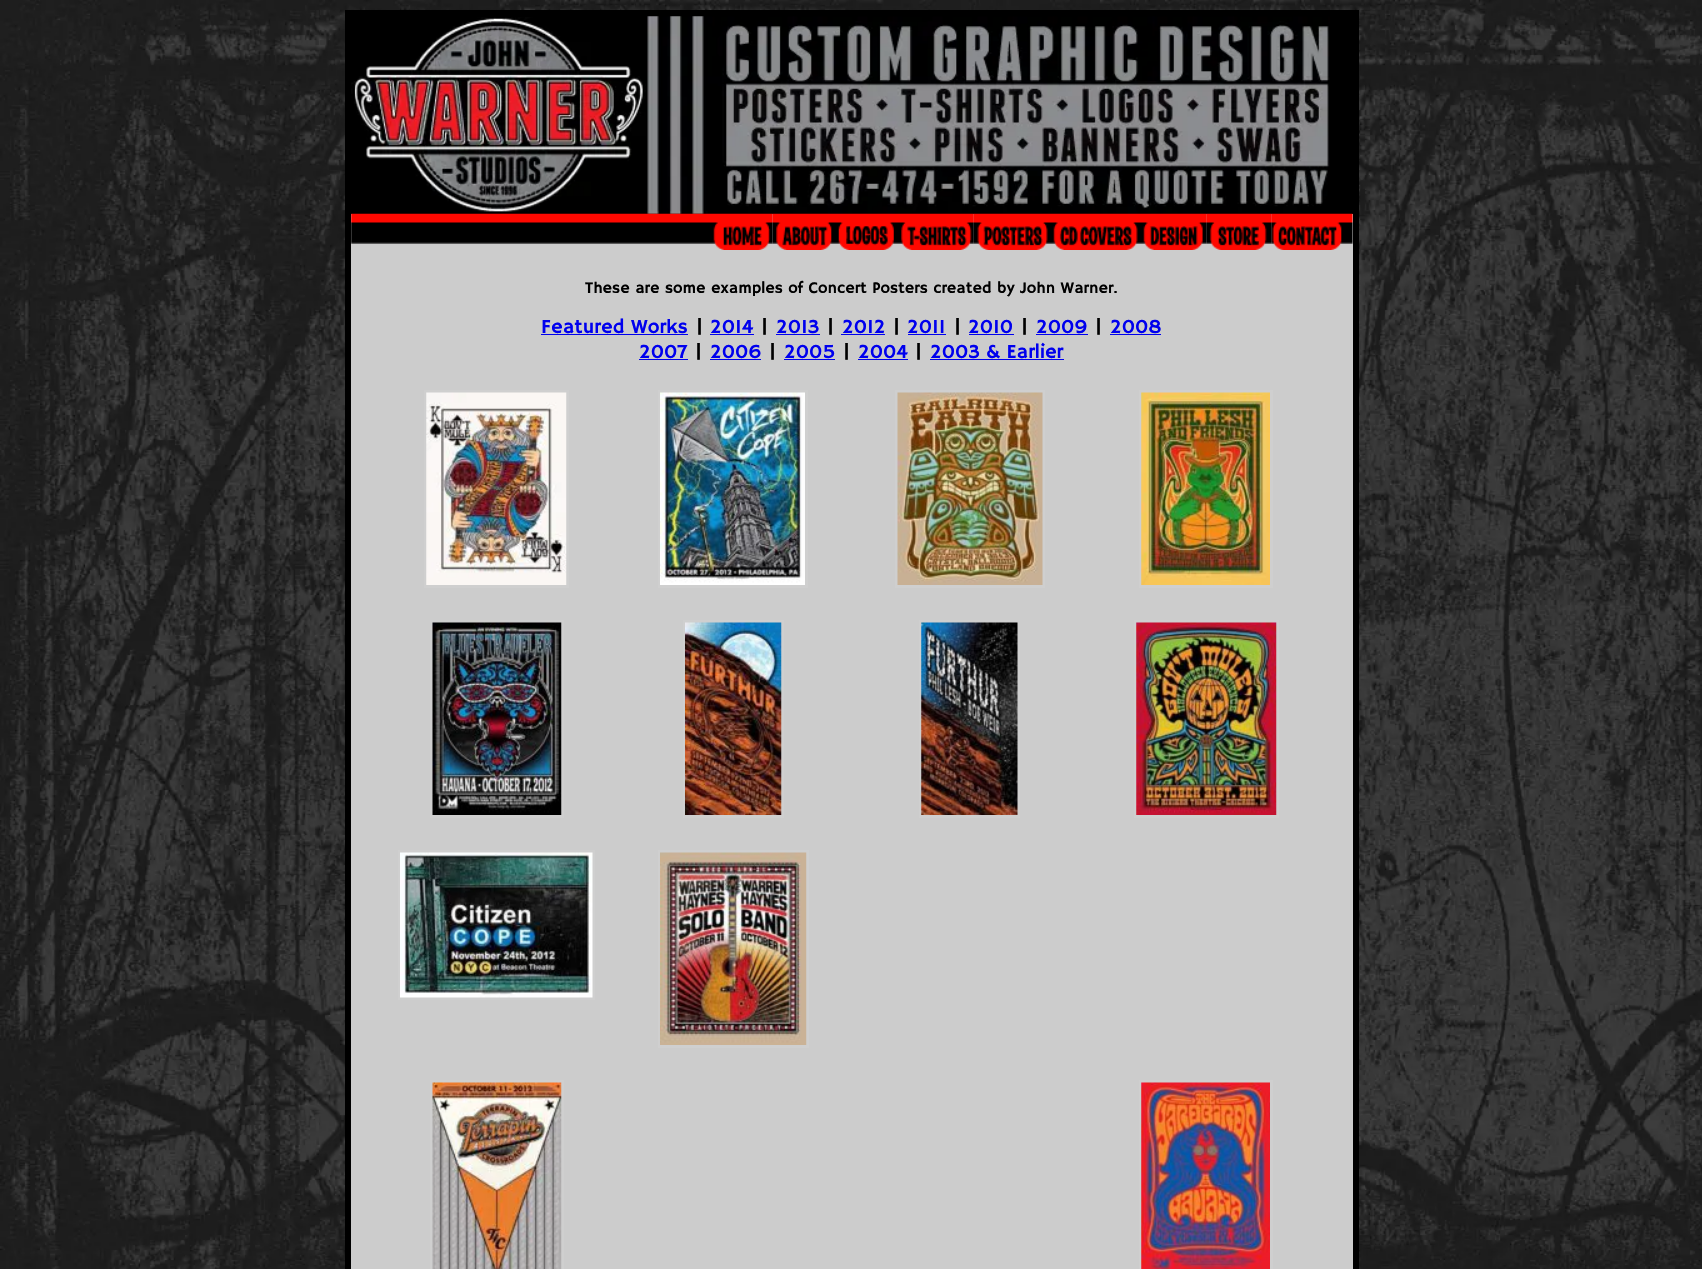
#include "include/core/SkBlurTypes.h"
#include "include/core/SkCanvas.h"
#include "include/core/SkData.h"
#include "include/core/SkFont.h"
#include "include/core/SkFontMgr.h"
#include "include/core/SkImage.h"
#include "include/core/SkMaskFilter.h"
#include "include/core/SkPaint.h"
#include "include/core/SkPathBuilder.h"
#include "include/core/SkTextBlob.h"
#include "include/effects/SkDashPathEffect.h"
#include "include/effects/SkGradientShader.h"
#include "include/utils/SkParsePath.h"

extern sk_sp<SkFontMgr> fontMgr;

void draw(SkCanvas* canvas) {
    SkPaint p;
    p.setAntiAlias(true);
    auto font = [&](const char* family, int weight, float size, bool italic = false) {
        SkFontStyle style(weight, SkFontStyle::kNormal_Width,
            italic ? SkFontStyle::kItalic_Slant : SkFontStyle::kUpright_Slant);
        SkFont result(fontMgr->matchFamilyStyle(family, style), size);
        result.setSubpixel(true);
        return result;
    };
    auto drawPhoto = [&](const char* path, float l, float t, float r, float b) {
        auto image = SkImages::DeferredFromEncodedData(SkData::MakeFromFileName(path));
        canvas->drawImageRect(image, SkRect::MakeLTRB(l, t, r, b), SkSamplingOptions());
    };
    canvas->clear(0xFFFFFFFF);
    drawPhoto("media/1.png", 0, 0, 1702, 1269);
    p.setColor(0xFF000000);
    canvas->drawRect(SkRect::MakeLTRB(345, 10, 1359, 1269), p);
    drawPhoto("media/2.png", 351, 17, 646, 212);
    drawPhoto("media/3.png", 647, 16, 1330, 214);
    p.setColor(0xFFCCCCCC);
    canvas->drawRect(SkRect::MakeLTRB(351, 214, 1353, 1269), p);
    drawPhoto("media/4.png", 351, 213, 705, 244);
    drawPhoto("media/5.png", 705, 213, 773, 250);
    drawPhoto("media/6.png", 772, 213, 835, 250);
    drawPhoto("media/7.png", 835, 213, 895, 250);
    drawPhoto("media/8.png", 895, 213, 974, 250);
    drawPhoto("media/9.png", 973, 213, 1050, 250);
    drawPhoto("media/10.png", 1050, 213, 1140, 250);
    drawPhoto("media/11.png", 1140, 213, 1207, 250);
    drawPhoto("media/12.png", 1206, 213, 1272, 250);
    drawPhoto("media/13.png", 1271, 213, 1353, 250);
    auto font1 = font("Hammersmith One", 400, 16.25f);
    p.setColor(0xFF000000);
    canvas->drawString("These are some examples of Concert Posters created by John Warner.", 585, 293, font1, p);
    auto font2 = font("Hammersmith One", 400, 20);
    p.setColor(0xFF0000EE);
    canvas->drawString("Featured Works", 541, 333, font2, p);
    canvas->drawRect(SkRect::MakeLTRB(541, 334, 688, 335), p);
    p.setColor(0xFF000000);
    canvas->drawString("|", 695, 333, font2, p);
    p.setColor(0xFF0000EE);
    canvas->drawString("2014", 710, 333, font2, p);
    canvas->drawRect(SkRect::MakeLTRB(710, 334, 754, 335), p);
    p.setColor(0xFF000000);
    canvas->drawString("|", 760, 333, font2, p);
    p.setColor(0xFF0000EE);
    canvas->drawString("2013", 776, 333, font2, p);
    canvas->drawRect(SkRect::MakeLTRB(776, 334, 820, 335), p);
    p.setColor(0xFF000000);
    canvas->drawString("|", 826, 333, font2, p);
    p.setColor(0xFF0000EE);
    canvas->drawString("2012", 842, 333, font2, p);
    canvas->drawRect(SkRect::MakeLTRB(841, 334, 885, 335), p);
    p.setColor(0xFF000000);
    canvas->drawString("|", 892, 333, font2, p);
    p.setColor(0xFF0000EE);
    canvas->drawString("2011", 907, 333, font2, p);
    canvas->drawRect(SkRect::MakeLTRB(908, 334, 946, 335), p);
    p.setColor(0xFF000000);
    canvas->drawString("|", 953, 333, font2, p);
    p.setColor(0xFF0000EE);
    canvas->drawString("2010", 968, 333, font2, p);
    canvas->drawRect(SkRect::MakeLTRB(969, 334, 1014, 335), p);
    p.setColor(0xFF000000);
    canvas->drawString("|", 1020, 333, font2, p);
    p.setColor(0xFF0000EE);
    canvas->drawString("2009", 1036, 333, font2, p);
    canvas->drawRect(SkRect::MakeLTRB(1036, 334, 1088, 335), p);
    p.setColor(0xFF000000);
    canvas->drawString("|", 1094, 333, font2, p);
    p.setColor(0xFF0000EE);
    canvas->drawString("2008", 1110, 333, font2, p);
    canvas->drawRect(SkRect::MakeLTRB(1110, 334, 1161, 335), p);
    canvas->drawString("2007", 639, 358, font2, p);
    canvas->drawRect(SkRect::MakeLTRB(639, 359, 688, 360), p);
    p.setColor(0xFF000000);
    canvas->drawString("|", 694, 358, font2, p);
    p.setColor(0xFF0000EE);
    canvas->drawString("2006", 710, 358, font2, p);
    canvas->drawRect(SkRect::MakeLTRB(710, 359, 761, 360), p);
    p.setColor(0xFF000000);
    canvas->drawString("|", 768, 358, font2, p);
    p.setColor(0xFF0000EE);
    canvas->drawString("2005", 784, 358, font2, p);
    canvas->drawRect(SkRect::MakeLTRB(784, 359, 835, 360), p);
    p.setColor(0xFF000000);
    canvas->drawString("|", 842, 358, font2, p);
    p.setColor(0xFF0000EE);
    canvas->drawString("2004", 858, 358, font2, p);
    canvas->drawRect(SkRect::MakeLTRB(858, 359, 908, 360), p);
    p.setColor(0xFF000000);
    canvas->drawString("|", 914, 358, font2, p);
    p.setColor(0xFF0000EE);
    canvas->drawString("2003 & Earlier", 930, 358, font2, p);
    canvas->drawRect(SkRect::MakeLTRB(930, 359, 1064, 360), p);
    p.setStyle(SkPaint::kStroke_Style);
    p.setStrokeWidth(3);
    p.setColor(0xFFCFCFCF);
    canvas->drawRect(SkRect::MakeLTRB(425.5f, 391.5f, 567.5f, 586.5f), p);
    drawPhoto("media/14.png", 426, 392, 567, 585);
    canvas->drawRect(SkRect::MakeLTRB(659.5f, 391.5f, 806.5f, 586.5f), p);
    drawPhoto("media/15.png", 660, 392, 805, 585);
    canvas->drawRect(SkRect::MakeLTRB(896.5f, 391.5f, 1043.5f, 586.5f), p);
    drawPhoto("media/16.png", 897, 392, 1043, 585);
    canvas->drawRect(SkRect::MakeLTRB(1140.5f, 391.5f, 1271.5f, 586.5f), p);
    drawPhoto("media/17.png", 1141, 392, 1270, 585);
    canvas->drawRect(SkRect::MakeLTRB(431.5f, 621.5f, 562.5f, 816.5f), p);
    drawPhoto("media/18.png", 432, 622, 562, 815);
    canvas->drawRect(SkRect::MakeLTRB(684.5f, 621.5f, 782.5f, 816.5f), p);
    drawPhoto("media/19.png", 685, 622, 782, 815);
    canvas->drawRect(SkRect::MakeLTRB(920.5f, 621.5f, 1018.5f, 816.5f), p);
    drawPhoto("media/20.png", 921, 622, 1018, 815);
    canvas->drawRect(SkRect::MakeLTRB(1135.5f, 621.5f, 1277.5f, 816.5f), p);
    drawPhoto("media/21.png", 1136, 622, 1277, 815);
    canvas->drawRect(SkRect::MakeLTRB(399.5f, 851.5f, 593.5f, 998.5f), p);
    drawPhoto("media/22.png", 400, 852, 593, 998);
    canvas->drawRect(SkRect::MakeLTRB(659.5f, 851.5f, 807.5f, 1046.5f), p);
    drawPhoto("media/23.png", 660, 852, 807, 1045);
    canvas->drawRect(SkRect::MakeLTRB(431.5f, 1081.5f, 562.5f, 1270.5f), p);
    drawPhoto("media/24.png", 432, 1082, 562, 1269);
    canvas->drawRect(SkRect::MakeLTRB(1140.5f, 1081.5f, 1271.5f, 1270.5f), p);
    drawPhoto("media/25.png", 1141, 1082, 1270, 1269);
}
